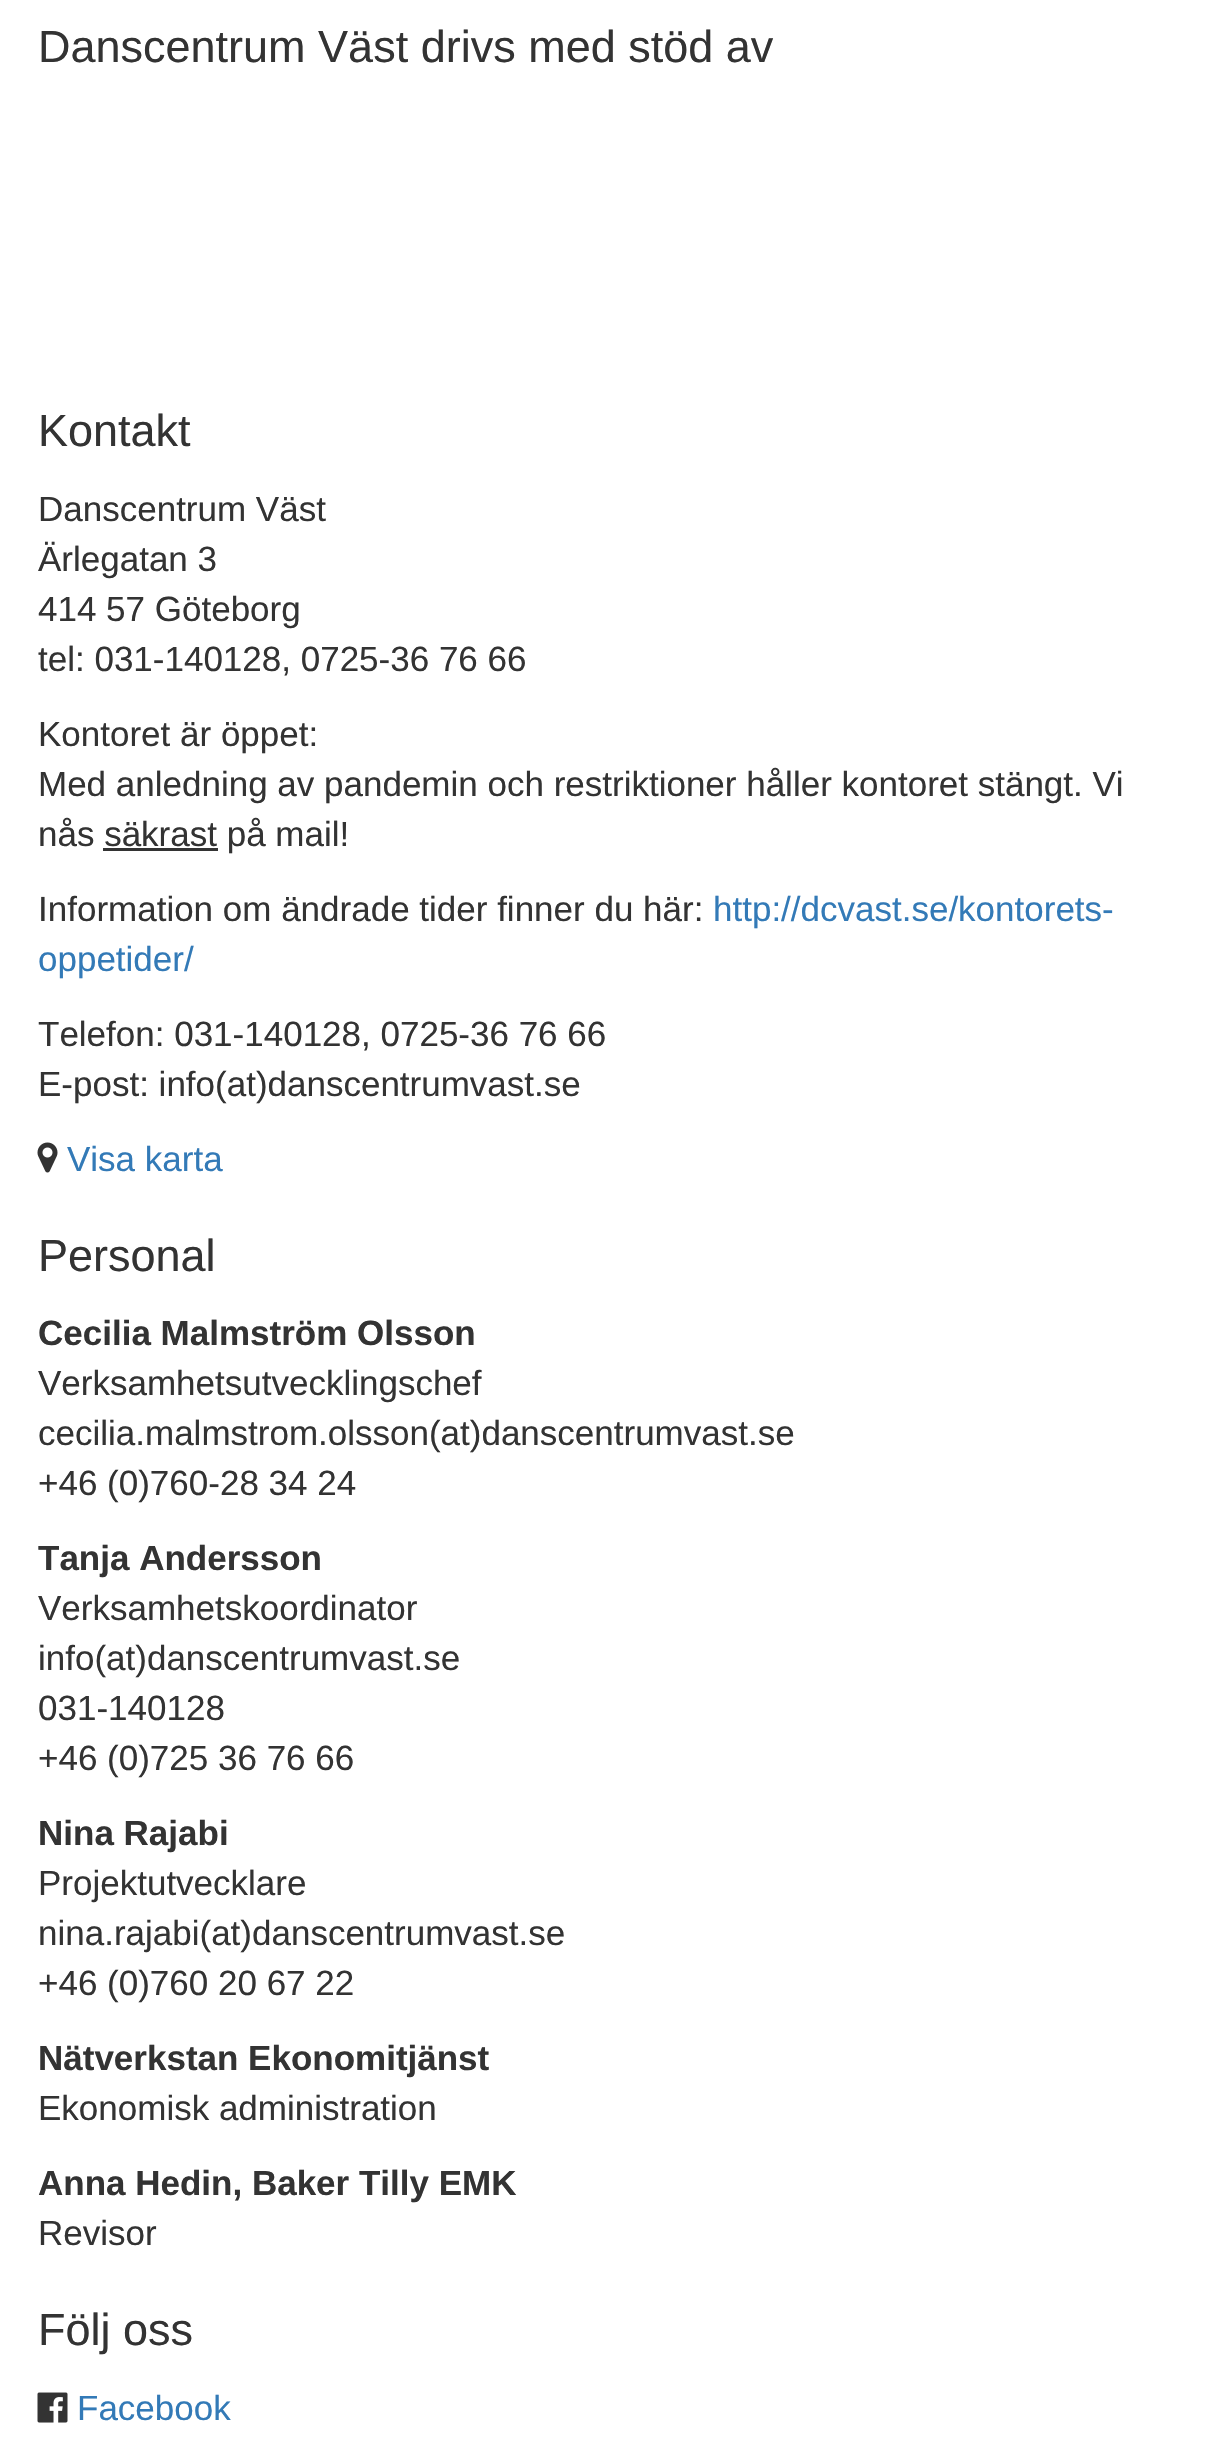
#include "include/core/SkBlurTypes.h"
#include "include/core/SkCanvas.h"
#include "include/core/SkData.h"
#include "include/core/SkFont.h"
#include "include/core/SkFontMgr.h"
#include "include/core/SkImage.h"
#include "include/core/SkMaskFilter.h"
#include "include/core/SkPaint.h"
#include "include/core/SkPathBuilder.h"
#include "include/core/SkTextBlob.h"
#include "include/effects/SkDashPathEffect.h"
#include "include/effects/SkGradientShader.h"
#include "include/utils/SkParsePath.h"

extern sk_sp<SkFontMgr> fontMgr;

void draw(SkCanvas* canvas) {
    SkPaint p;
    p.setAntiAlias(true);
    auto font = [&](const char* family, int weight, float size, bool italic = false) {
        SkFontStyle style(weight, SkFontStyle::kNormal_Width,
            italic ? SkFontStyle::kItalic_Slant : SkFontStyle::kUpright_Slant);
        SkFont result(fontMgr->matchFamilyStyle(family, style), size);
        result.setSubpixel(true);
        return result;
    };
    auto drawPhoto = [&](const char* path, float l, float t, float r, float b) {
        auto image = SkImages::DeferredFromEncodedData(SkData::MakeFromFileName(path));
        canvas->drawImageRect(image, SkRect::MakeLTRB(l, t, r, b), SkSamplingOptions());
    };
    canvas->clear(0xFFFFFFFF);
    auto font1 = font("Liberation Sans", 400, 45);
    p.setColor(0xFF333333);
    canvas->drawString("Danscentrum Väst drivs med stöd av", 38, 62, font1, p);
    canvas->drawString("Kontakt", 38, 446, font1, p);
    auto font2 = font("Liberation Sans", 400, 35);
    {
        const struct { const char* s; float x, y; } items[] = {
            {"Danscentrum Väst", 38, 521},
            {"Ärlegatan 3", 38, 571},
            {"414 57 Göteborg", 38, 621},
            {"tel: 031-140128, 0725-36 76 66", 38, 671},
            {"Kontoret är öppet:", 38, 746},
            {"Med anledning av pandemin och restriktioner håller kontoret stängt. Vi", 38, 796},
            {"nås säkrast på mail!", 38, 846},
        };
        for (auto [s, x, y] : items) {
            canvas->drawString(s, x, y, font2, p);
        }
    }
    canvas->drawRect(SkRect::MakeLTRB(103, 848, 218, 851), p);
    canvas->drawString("Information om ändrade tider finner du här:", 38, 921, font2, p);
    p.setColor(0xFF337AB7);
    canvas->drawString("http://dcvast.se/kontorets-", 713, 921, font2, p);
    canvas->drawString("oppetider/", 38, 971, font2, p);
    p.setColor(0xFF333333);
    canvas->drawString("Telefon: 031-140128, 0725-36 76 66", 38, 1046, font2, p);
    canvas->drawString("E-post: info(at)danscentrumvast.se", 38, 1096, font2, p);
    drawPhoto("media/1.png", 37, 1142, 58, 1173);
    p.setColor(0xFF337AB7);
    canvas->drawString("Visa karta", 67, 1171, font2, p);
    p.setColor(0xFF333333);
    canvas->drawString("Personal", 38, 1271, font1, p);
    auto font3 = font("Liberation Sans", 700, 35);
    canvas->drawString("Cecilia Malmström Olsson", 38, 1345, font3, p);
    {
        const struct { const char* s; float x, y; } items[] = {
            {"Verksamhetsutvecklingschef", 38, 1395},
            {"cecilia.malmstrom.olsson(at)danscentrumvast.se", 38, 1445},
            {"+46 (0)760-28 34 24", 38, 1495},
        };
        for (auto [s, x, y] : items) {
            canvas->drawString(s, x, y, font2, p);
        }
    }
    canvas->drawString("Tanja Andersson", 38, 1570, font3, p);
    {
        const struct { const char* s; float x, y; } items[] = {
            {"Verksamhetskoordinator", 38, 1620},
            {"info(at)danscentrumvast.se", 38, 1670},
            {"031-140128", 38, 1720},
            {"+46 (0)725 36 76 66", 38, 1770},
        };
        for (auto [s, x, y] : items) {
            canvas->drawString(s, x, y, font2, p);
        }
    }
    canvas->drawString("Nina Rajabi", 38, 1845, font3, p);
    {
        const struct { const char* s; float x, y; } items[] = {
            {"Projektutvecklare", 38, 1895},
            {"nina.rajabi(at)danscentrumvast.se", 38, 1945},
            {"+46 (0)760 20 67 22", 38, 1995},
        };
        for (auto [s, x, y] : items) {
            canvas->drawString(s, x, y, font2, p);
        }
    }
    canvas->drawString("Nätverkstan Ekonomitjänst", 38, 2070, font3, p);
    canvas->drawString("Ekonomisk administration", 38, 2120, font2, p);
    canvas->drawString("Anna Hedin, Baker Tilly EMK", 38, 2195, font3, p);
    canvas->drawString("Revisor", 38, 2245, font2, p);
    canvas->drawString("Följ oss", 38, 2345, font1, p);
    drawPhoto("media/2.png", 37, 2392, 68, 2423);
    p.setColor(0xFF337AB7);
    canvas->drawString("Facebook", 77, 2420, font2, p);
}
